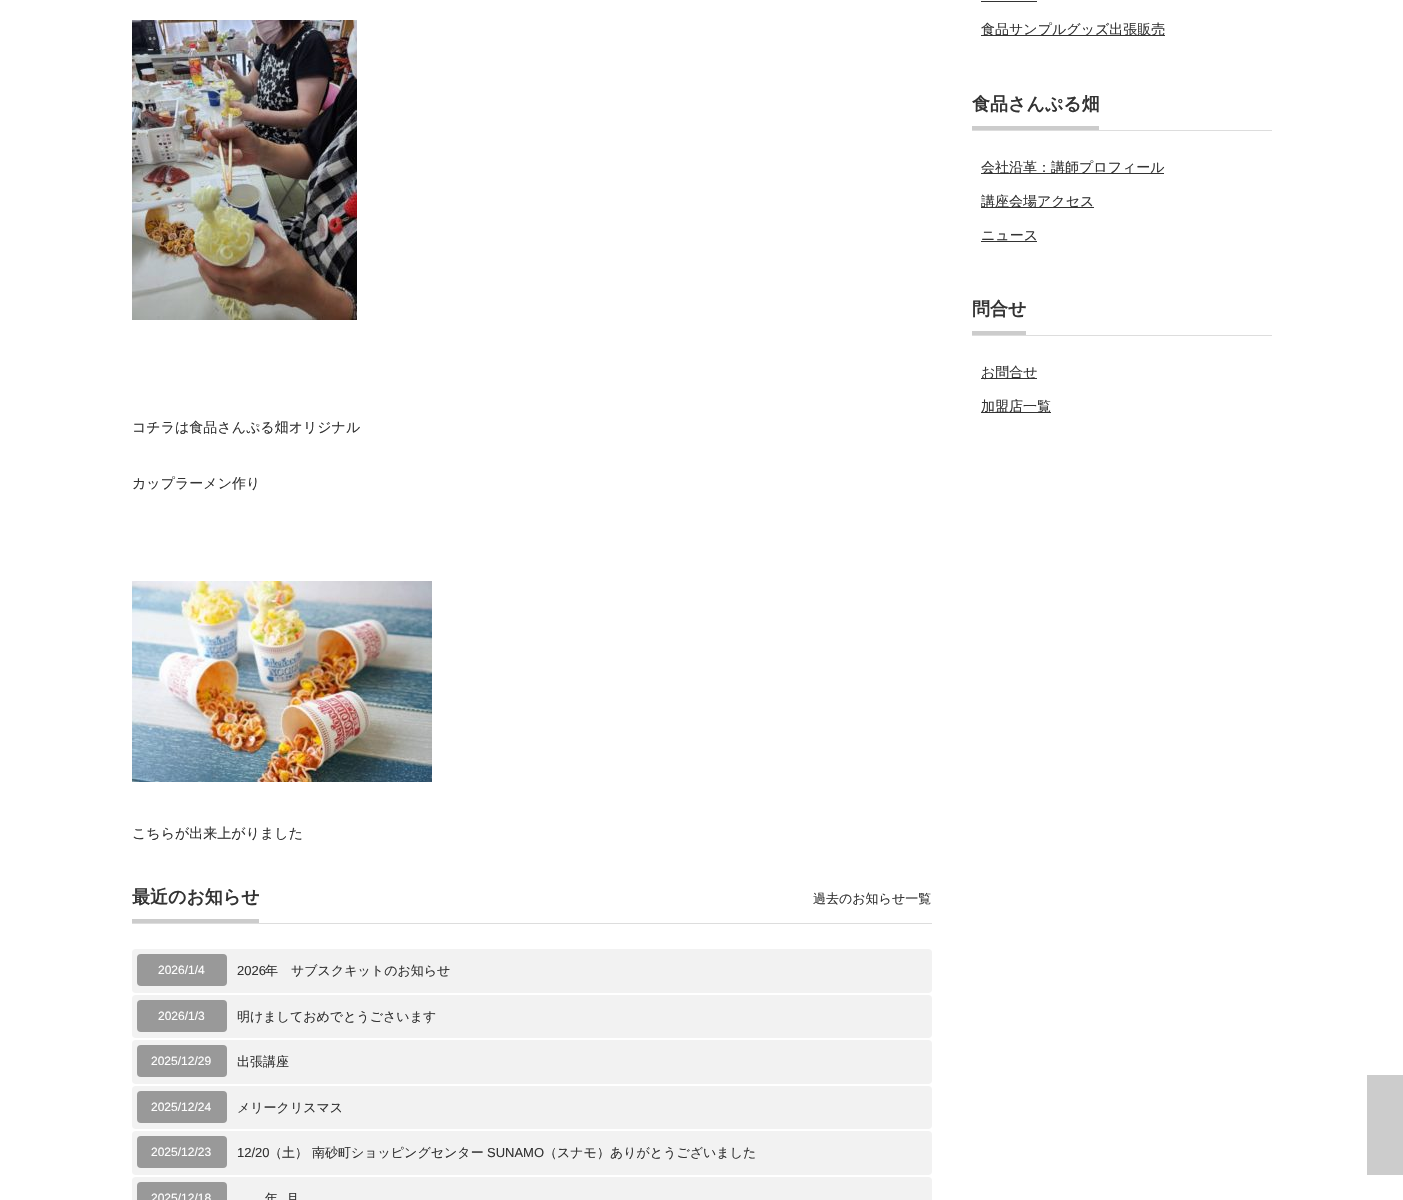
#include "include/core/SkBlurTypes.h"
#include "include/core/SkCanvas.h"
#include "include/core/SkData.h"
#include "include/core/SkFont.h"
#include "include/core/SkFontMgr.h"
#include "include/core/SkImage.h"
#include "include/core/SkMaskFilter.h"
#include "include/core/SkPaint.h"
#include "include/core/SkPathBuilder.h"
#include "include/core/SkTextBlob.h"
#include "include/effects/SkDashPathEffect.h"
#include "include/effects/SkGradientShader.h"
#include "include/utils/SkParsePath.h"

extern sk_sp<SkFontMgr> fontMgr;

void draw(SkCanvas* canvas) {
    SkPaint p;
    p.setAntiAlias(true);
    auto font = [&](const char* family, int weight, float size, bool italic = false) {
        SkFontStyle style(weight, SkFontStyle::kNormal_Width,
            italic ? SkFontStyle::kItalic_Slant : SkFontStyle::kUpright_Slant);
        SkFont result(fontMgr->matchFamilyStyle(family, style), size);
        result.setSubpixel(true);
        return result;
    };
    auto drawPhoto = [&](const char* path, float l, float t, float r, float b) {
        auto image = SkImages::DeferredFromEncodedData(SkData::MakeFromFileName(path));
        canvas->drawImageRect(image, SkRect::MakeLTRB(l, t, r, b), SkSamplingOptions());
    };
    canvas->clear(0xFFFFFFFF);
    p.setColor(0xFF333333);
    canvas->drawRect(SkRect::MakeLTRB(981, 1, 1037, 2), p);
    canvas->drawRect(SkRect::MakeLTRB(981, 35, 1165, 36), p);
    auto font1 = font("WenQuanYi Zen Hei", 500, 14);
    canvas->drawString("食品サンプルグッズ出張販売", 981, 34, font1, p);
    p.setColor(0xFFDDDDDD);
    canvas->drawRect(SkRect::MakeLTRB(972, 130, 1272, 131), p);
    p.setColor(0xFFCCCCCC);
    canvas->drawRect(SkRect::MakeLTRB(972, 126, 1099, 130), p);
    auto font2 = font("WenQuanYi Zen Hei", 700, 18);
    p.setColor(0xFF333333);
    canvas->drawString("食品さんぷる畑", 972, 110, font2, p);
    canvas->drawRect(SkRect::MakeLTRB(981, 173, 1164, 174), p);
    canvas->drawString("会社沿革：講師プロフィール", 981, 172, font1, p);
    canvas->drawRect(SkRect::MakeLTRB(981, 207, 1094, 208), p);
    canvas->drawString("講座会場アクセス", 981, 206, font1, p);
    canvas->drawString("ニュース", 981, 240, font1, p);
    {
        const struct { float l, t, r, b; SkColor color; } items[] = {
            {981, 241, 1037, 242, 0xFF333333},
            {972, 335, 1272, 336, 0xFFDDDDDD},
            {972, 331, 1026, 335, 0xFFCCCCCC},
        };
        for (auto [l, t, r, b, color] : items) {
            p.setColor(color);
            canvas->drawRect(SkRect::MakeLTRB(l, t, r, b), p);
        }
    }
    p.setColor(0xFF333333);
    canvas->drawString("問合せ", 972, 315, font2, p);
    canvas->drawRect(SkRect::MakeLTRB(981, 378, 1037, 379), p);
    canvas->drawString("お問合せ", 981, 377, font1, p);
    canvas->drawRect(SkRect::MakeLTRB(981, 412, 1051, 413), p);
    canvas->drawString("加盟店一覧", 981, 411, font1, p);
    drawPhoto("media/1.png", 132, 20, 357, 320);
    canvas->drawString("コチラは食品さんぷる畑オリジナル", 132, 432, font1, p);
    canvas->drawString("カップラーメン作り", 132, 488, font1, p);
    drawPhoto("media/2.png", 132, 581, 432, 782);
    canvas->drawString("こちらが出来上がりました", 132, 838, font1, p);
    p.setColor(0xFFDDDDDD);
    canvas->drawRect(SkRect::MakeLTRB(132, 923, 932, 924), p);
    p.setColor(0xFFCCCCCC);
    canvas->drawRect(SkRect::MakeLTRB(132, 919, 259, 923), p);
    p.setColor(0xFF333333);
    canvas->drawString("最近のお知らせ", 132, 903, font2, p);
    auto font3 = font("WenQuanYi Zen Hei", 500, 13);
    canvas->drawString("過去のお知らせ一覧", 813, 903, font3, p);
    p.setColor(0xFFF2F2F2);
    canvas->drawRoundRect(SkRect::MakeLTRB(132, 949, 932, 993), 4, 4, p);
    p.setColor(0xFF999999);
    canvas->drawRoundRect(SkRect::MakeLTRB(137, 954, 227, 986), 4, 4, p);
    auto font4 = font("Liberation Sans", 400, 12);
    p.setColor(0xFFFFFFFF);
    canvas->drawString("2026/1/4", 158, 974, font4, p);
    auto font5 = font("Liberation Sans", 400, 13);
    p.setColor(0xFF333333);
    canvas->drawString("2026", 237, 975, font5, p);
    canvas->drawString("年　サブスクキットのお知らせ", 265, 975, font3, p);
    p.setColor(0xFFF2F2F2);
    canvas->drawRoundRect(SkRect::MakeLTRB(132, 995, 932, 1038), 4, 4, p);
    p.setColor(0xFF999999);
    canvas->drawRoundRect(SkRect::MakeLTRB(137, 1000, 227, 1032), 4, 4, p);
    p.setColor(0xFFFFFFFF);
    canvas->drawString("2026/1/3", 158, 1020, font4, p);
    p.setColor(0xFF333333);
    canvas->drawString("明けましておめでとうごさいます", 237, 1021, font3, p);
    p.setColor(0xFFF2F2F2);
    canvas->drawRoundRect(SkRect::MakeLTRB(132, 1040, 932, 1084), 4, 4, p);
    p.setColor(0xFF999999);
    canvas->drawRoundRect(SkRect::MakeLTRB(137, 1045, 227, 1077), 4, 4, p);
    p.setColor(0xFFFFFFFF);
    canvas->drawString("2025/12/29", 151, 1065, font4, p);
    p.setColor(0xFF333333);
    canvas->drawString("出張講座", 237, 1066, font3, p);
    p.setColor(0xFFF2F2F2);
    canvas->drawRoundRect(SkRect::MakeLTRB(132, 1086, 932, 1129), 4, 4, p);
    p.setColor(0xFF999999);
    canvas->drawRoundRect(SkRect::MakeLTRB(137, 1091, 227, 1123), 4, 4, p);
    p.setColor(0xFFFFFFFF);
    canvas->drawString("2025/12/24", 151, 1111, font4, p);
    p.setColor(0xFF333333);
    canvas->drawString("メリークリスマス", 237, 1112, font3, p);
    p.setColor(0xFFF2F2F2);
    canvas->drawRoundRect(SkRect::MakeLTRB(132, 1131, 932, 1175), 4, 4, p);
    p.setColor(0xFF999999);
    canvas->drawRoundRect(SkRect::MakeLTRB(137, 1136, 227, 1168), 4, 4, p);
    p.setColor(0xFFFFFFFF);
    canvas->drawString("2025/12/23", 151, 1156, font4, p);
    p.setColor(0xFF333333);
    canvas->drawString("12/20", 237, 1157, font5, p);
    canvas->drawString("（土） 南砂町ショッピングセンター", 269, 1157, font3, p);
    canvas->drawString("SUNAMO", 487, 1157, font5, p);
    canvas->drawString("（スナモ）ありがとうございました", 544, 1157, font3, p);
    p.setColor(0xFFF2F2F2);
    canvas->drawRoundRect(SkRect::MakeLTRB(132, 1177, 932, 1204), 4, 4, p);
    p.setColor(0xFF999999);
    canvas->drawRoundRect(SkRect::MakeLTRB(137, 1182, 227, 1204), 4, 4, p);
    p.setColor(0xFFFFFFFF);
    canvas->drawString("2025/12/18", 151, 1202, font4, p);
    p.setColor(0xFF333333);
    canvas->drawString("年", 265, 1203, font3, p);
    canvas->drawString("月", 286, 1203, font3, p);
    p.setColor(0xFFCCCCCC);
    canvas->drawRect(SkRect::MakeLTRB(1367, 1075, 1403, 1175), p);
}
